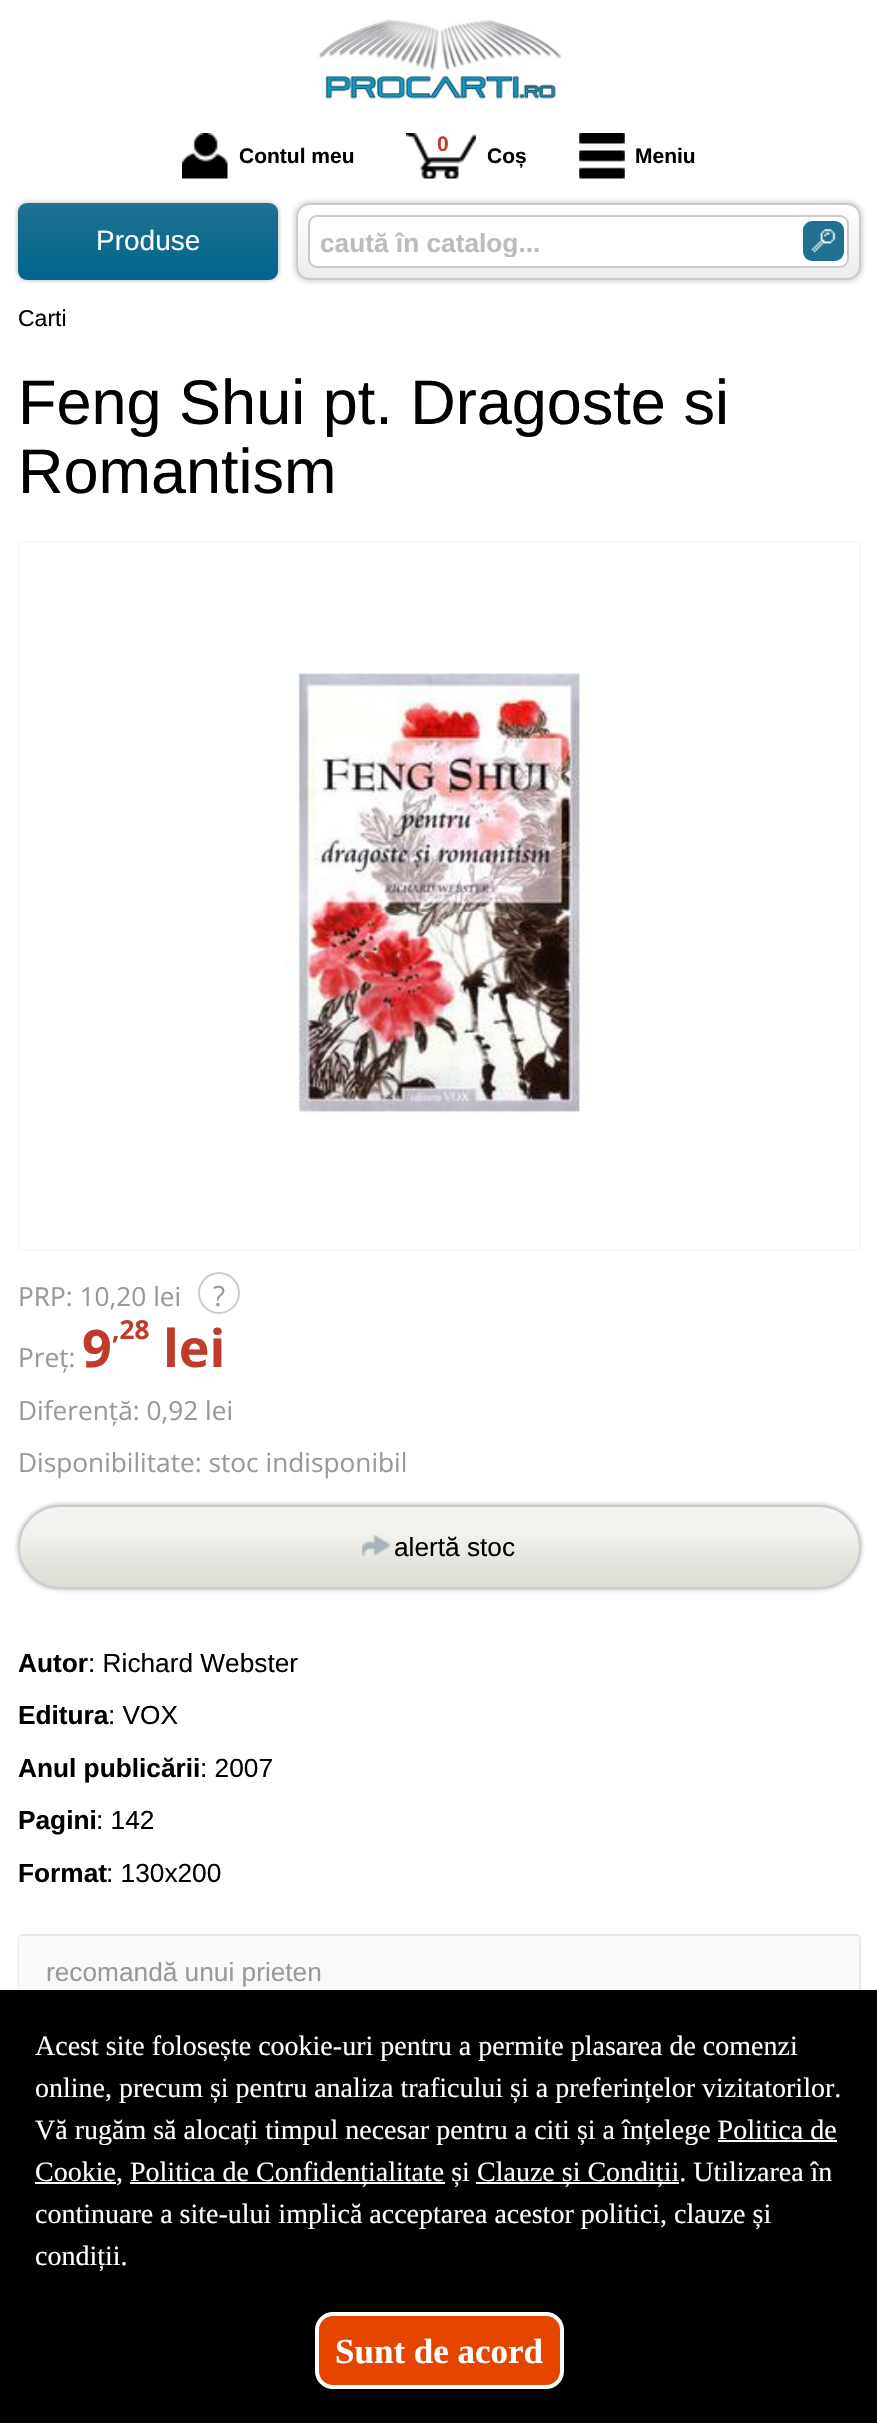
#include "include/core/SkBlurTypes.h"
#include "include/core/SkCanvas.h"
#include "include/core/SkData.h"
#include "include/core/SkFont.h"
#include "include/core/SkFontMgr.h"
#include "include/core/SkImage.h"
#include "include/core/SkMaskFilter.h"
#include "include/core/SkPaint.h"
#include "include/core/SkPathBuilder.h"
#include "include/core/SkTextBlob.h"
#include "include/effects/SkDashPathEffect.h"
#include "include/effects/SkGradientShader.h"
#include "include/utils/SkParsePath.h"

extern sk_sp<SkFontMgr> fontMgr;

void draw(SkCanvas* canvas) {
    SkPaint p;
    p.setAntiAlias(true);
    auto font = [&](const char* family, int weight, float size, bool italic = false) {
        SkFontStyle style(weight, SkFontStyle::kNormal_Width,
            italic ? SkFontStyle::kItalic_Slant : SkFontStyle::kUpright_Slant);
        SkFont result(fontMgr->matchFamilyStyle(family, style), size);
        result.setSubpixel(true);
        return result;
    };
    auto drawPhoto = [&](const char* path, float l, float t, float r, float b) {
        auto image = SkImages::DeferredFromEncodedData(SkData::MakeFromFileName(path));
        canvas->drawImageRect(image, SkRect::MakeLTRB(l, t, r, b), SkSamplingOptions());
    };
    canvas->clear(0xFFFFFFFF);
    drawPhoto("media/1.png", 317, 19, 562, 102);
    drawPhoto("media/2.png", 182, 133, 228, 179);
    auto font1 = font("Liberation Sans", 700, 21);
    p.setColor(0xFF000000);
    canvas->drawString("Contul meu", 239, 163, font1, p);
    drawPhoto("media/3.png", 406, 133, 476, 179);
    p.setColor(0xFFBF3C2B);
    canvas->drawString("0", 437, 151, font1, p);
    p.setColor(0xFF000000);
    canvas->drawString("Coș", 487, 163, font1, p);
    drawPhoto("media/4.png", 579, 133, 625, 179);
    canvas->drawString("Meniu", 635, 163, font1, p);
    p.setColor(0x66323232);
    p.setMaskFilter(SkMaskFilter::MakeBlur(kNormal_SkBlurStyle, 2.5f));
    canvas->drawRoundRect(SkRect::MakeLTRB(18, 203, 278, 280), 9, 9, p);
    p.setMaskFilter(nullptr);
    {
        const SkColor colors[] = {0xFF207091, 0xFF00668C};
        const float stops[] = {0, 1};
        const SkPoint ends[] = {{148, 203}, {148, 280}};
        p.setShader(SkGradientShader::MakeLinear(ends, colors, stops, 2, SkTileMode::kClamp));
        p.setAlpha(255);
    }
    canvas->drawRoundRect(SkRect::MakeLTRB(18, 203, 278, 280), 9, 9, p);
    auto font2 = font("Liberation Sans", 400, 28);
    p.setShader(nullptr);
    p.setColor(0xFFFFFFFF);
    canvas->drawString("Produse", 96, 250, font2, p);
    p.setColor(0x26000000);
    p.setMaskFilter(SkMaskFilter::MakeBlur(kNormal_SkBlurStyle, 2));
    canvas->drawRoundRect(SkRect::MakeLTRB(294, 201, 863, 282), 16, 16, p);
    p.setMaskFilter(nullptr);
    canvas->save();
    canvas->clipPath(SkPathBuilder().moveTo(310, 203).lineTo(847, 203).cubicTo(854.5f, 203, 861, 209.5f, 861, 217).lineTo(861, 266).cubicTo(861, 273.5f, 854.5f, 280, 847, 280).lineTo(310, 280).cubicTo(302.5f, 280, 296, 273.5f, 296, 266).lineTo(296, 217).cubicTo(296, 209.5f, 302.5f, 203, 310, 203).close().detach(), true);
    {
        const SkColor colors[] = {0xFFFFFFFF, 0xFFF6F6F6, 0xFFEDEDED};
        const float stops[] = {0, 0.47f, 1};
        const SkPoint ends[] = {{578, 205}, {578, 278}};
        p.setShader(SkGradientShader::MakeLinear(ends, colors, stops, 3, SkTileMode::kClamp));
        p.setAlpha(255);
    }
    canvas->drawRect(SkRect::MakeLTRB(296, 205, 861, 278), p);
    canvas->restore();
    p.setStyle(SkPaint::kStroke_Style);
    p.setStrokeWidth(2);
    p.setShader(nullptr);
    p.setColor(0xFFCCCCCC);
    canvas->drawRoundRect(SkRect::MakeLTRB(297, 204, 860, 279), 13, 13, p);
    p.setStyle(SkPaint::kFill_Style);
    p.setColor(0xFFFFFFFF);
    canvas->drawRoundRect(SkRect::MakeLTRB(309, 216, 848, 267), 8, 8, p);
    p.setStyle(SkPaint::kStroke_Style);
    p.setColor(0xFFCCCCCC);
    canvas->drawRoundRect(SkRect::MakeLTRB(309, 216, 848, 267), 8, 8, p);
    canvas->save();
    canvas->clipRect(SkRect::MakeLTRB(320, 228, 767, 257));
    auto font3 = font("Liberation Sans", 700, 26.25f);
    p.setStyle(SkPaint::kFill_Style);
    p.setColor(0xFFBCBCBC);
    canvas->drawString("caută în catalog...", 320, 252, font3, p);
    canvas->restore();
    p.setColor(0xFF207091);
    canvas->drawRoundRect(SkRect::MakeLTRB(803, 221, 844, 261), 9, 9, p);
    drawPhoto("media/5.png", 811, 228, 836, 253);
    auto font4 = font("Liberation Sans", 400, 23);
    p.setColor(0xFF000000);
    canvas->drawString("Carti", 18, 326, font4, p);
    auto font5 = font("Liberation Sans", 400, 63);
    canvas->drawString("Feng Shui pt. Dragoste si", 18, 424, font5, p);
    canvas->drawString("Romantism", 18, 493, font5, p);
    p.setStyle(SkPaint::kStroke_Style);
    p.setColor(0xFFF8F8F8);
    canvas->drawRect(SkRect::MakeLTRB(19, 542, 860, 1250), p);
    drawPhoto("media/6.png", 285, 672, 594, 1116);
    auto font6 = font("Open Sans", 400, 26.25f);
    p.setStyle(SkPaint::kFill_Style);
    p.setColor(0xFF999999);
    canvas->drawString("PRP: 10,20 lei", 18, 1306, font6, p);
    p.setStyle(SkPaint::kStroke_Style);
    p.setColor(0xFFCCCCCC);
    canvas->drawCircle(219, 1293, 20, p);
    auto font7 = font("Open Sans", 400, 28);
    p.setStyle(SkPaint::kFill_Style);
    p.setColor(0xFF999999);
    canvas->drawString("?", 213, 1306, font7, p);
    canvas->drawString("Preț:", 18, 1367, font6, p);
    auto font8 = font("Open Sans", 700, 52);
    p.setColor(0xFFBF3C2B);
    canvas->drawString("9", 82, 1367, font8, p);
    auto font9 = font("Open Sans", 700, 26.25f);
    canvas->drawString(",28", 112, 1339, font9, p);
    canvas->drawString("lei", 163, 1367, font8, p);
    p.setColor(0xFF999999);
    canvas->drawString("Diferență: 0,92 lei", 18, 1420, font6, p);
    canvas->drawString("Disponibilitate: stoc indisponibil", 18, 1472, font6, p);
    p.setColor(0x66323232);
    p.setMaskFilter(SkMaskFilter::MakeBlur(kNormal_SkBlurStyle, 2.5f));
    canvas->drawRoundRect(SkRect::MakeLTRB(18, 1505, 861, 1589), 42, 42, p);
    p.setMaskFilter(nullptr);
    canvas->save();
    canvas->clipPath(SkPathBuilder().moveTo(60, 1505).lineTo(819, 1505).cubicTo(842, 1505, 861, 1524, 861, 1547).cubicTo(861, 1570, 842, 1589, 819, 1589).lineTo(60, 1589).cubicTo(37, 1589, 18, 1570, 18, 1547).cubicTo(18, 1524, 37, 1505, 60, 1505).close().detach(), true);
    {
        const SkColor colors[] = {0xFFF4F4F2, 0xFFF2F3EE, 0xFFDFE0D8, 0xFFDCDDD5};
        const float stops[] = {0, 0.32f, 0.79f, 1};
        const SkPoint ends[] = {{439, 1507}, {439, 1587}};
        p.setShader(SkGradientShader::MakeLinear(ends, colors, stops, 4, SkTileMode::kClamp));
        p.setAlpha(255);
    }
    canvas->drawRect(SkRect::MakeLTRB(18, 1507, 861, 1587), p);
    canvas->restore();
    p.setStyle(SkPaint::kStroke_Style);
    p.setShader(nullptr);
    p.setColor(0xFFCCCCCC);
    canvas->drawRoundRect(SkRect::MakeLTRB(19, 1506, 860, 1588), 41, 41, p);
    drawPhoto("media/7.png", 362, 1534, 391, 1557);
    auto font10 = font("Liberation Sans", 400, 26.25f);
    p.setStyle(SkPaint::kFill_Style);
    p.setColor(0xFF000000);
    canvas->drawString("alertă stoc", 394, 1556, font10, p);
    canvas->drawString("Autor", 18, 1672, font3, p);
    canvas->drawString(": Richard Webster", 88, 1672, font10, p);
    canvas->drawString("Editura", 18, 1724, font3, p);
    canvas->drawString(": VOX", 108, 1724, font10, p);
    canvas->drawString("Anul publicării", 18, 1777, font3, p);
    canvas->drawString(": 2007", 200, 1777, font10, p);
    canvas->drawString("Pagini", 18, 1829, font3, p);
    canvas->drawString(": 142", 96, 1829, font10, p);
    canvas->drawString("Format", 18, 1882, font3, p);
    canvas->drawString(": 130x200", 106, 1882, font10, p);
    p.setStyle(SkPaint::kStroke_Style);
    p.setColor(0xFFE8E8E8);
    canvas->drawRoundRect(SkRect::MakeLTRB(19, 1935, 860, 2164), 4, 4, p);
    p.setStyle(SkPaint::kFill_Style);
    p.setColor(0xFFF9F9F9);
    canvas->drawRect(SkRect::MakeLTRB(19, 1936, 859, 1990), p);
    p.setColor(0xFF999999);
    canvas->drawString("recomandă unui prieten", 46, 1981, font10, p);
    p.setColor(0xFF000000);
    canvas->drawRect(SkRect::MakeLTRB(0, 1990, 877, 2423), p);
    auto font11 = font("Liberation Serif", 400, 28);
    p.setColor(0xFFFFFFFF);
    {
        const struct { const char* s; float x, y; } items[] = {
            {"Acest site folosește cookie-uri pentru a permite plasarea de comenzi", 35, 2055},
            {"online, precum și pentru analiza traficului și a preferințelor vizitatorilor.", 35, 2097},
            {"Vă rugăm să alocați timpul necesar pentru a citi și a înțelege Politica de", 35, 2139},
        };
        for (auto [s, x, y] : items) {
            canvas->drawString(s, x, y, font11, p);
        }
    }
    canvas->drawRect(SkRect::MakeLTRB(35, 2182, 116, 2184), p);
    canvas->drawString("Cookie,", 35, 2181, font11, p);
    canvas->drawRect(SkRect::MakeLTRB(718, 2140, 837, 2142), p);
    canvas->drawRect(SkRect::MakeLTRB(130, 2182, 445, 2184), p);
    canvas->drawString("Politica de Confidențialitate și", 130, 2181, font11, p);
    canvas->drawRect(SkRect::MakeLTRB(476, 2182, 679, 2184), p);
    {
        const struct { const char* s; float x, y; } items[] = {
            {"Clauze și Condiții. Utilizarea în", 477, 2181},
            {"continuare a site-ului implică acceptarea acestor politici, clauze și", 35, 2223},
            {"condiții.", 35, 2265},
        };
        for (auto [s, x, y] : items) {
            canvas->drawString(s, x, y, font11, p);
        }
    }
    p.setColor(0xFFE64500);
    canvas->drawRoundRect(SkRect::MakeLTRB(317, 2314, 562, 2387), 16, 16, p);
    p.setStyle(SkPaint::kStroke_Style);
    p.setStrokeWidth(4);
    p.setColor(0xFFFFFFFF);
    canvas->drawRoundRect(SkRect::MakeLTRB(317, 2314, 562, 2387), 16, 16, p);
    auto font12 = font("Liberation Serif", 700, 35);
    p.setStyle(SkPaint::kFill_Style);
    canvas->drawString("Sunt de acord", 335, 2363, font12, p);
}
